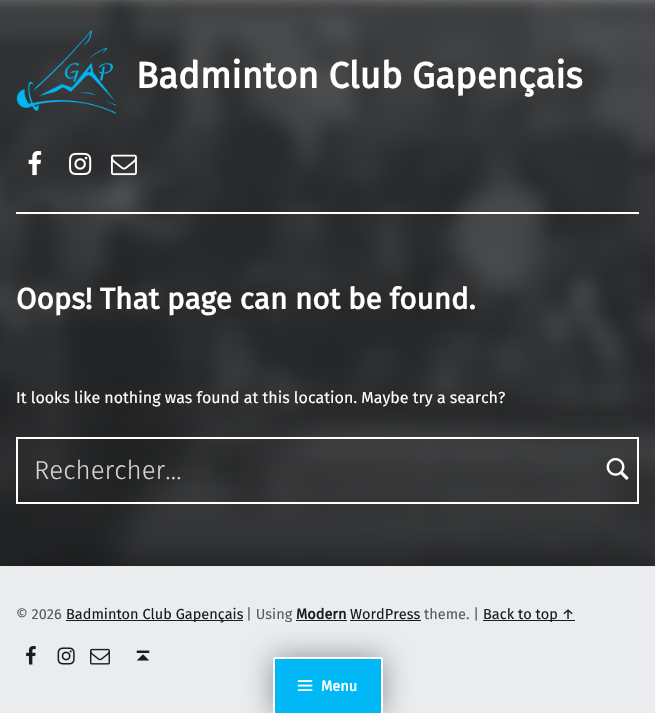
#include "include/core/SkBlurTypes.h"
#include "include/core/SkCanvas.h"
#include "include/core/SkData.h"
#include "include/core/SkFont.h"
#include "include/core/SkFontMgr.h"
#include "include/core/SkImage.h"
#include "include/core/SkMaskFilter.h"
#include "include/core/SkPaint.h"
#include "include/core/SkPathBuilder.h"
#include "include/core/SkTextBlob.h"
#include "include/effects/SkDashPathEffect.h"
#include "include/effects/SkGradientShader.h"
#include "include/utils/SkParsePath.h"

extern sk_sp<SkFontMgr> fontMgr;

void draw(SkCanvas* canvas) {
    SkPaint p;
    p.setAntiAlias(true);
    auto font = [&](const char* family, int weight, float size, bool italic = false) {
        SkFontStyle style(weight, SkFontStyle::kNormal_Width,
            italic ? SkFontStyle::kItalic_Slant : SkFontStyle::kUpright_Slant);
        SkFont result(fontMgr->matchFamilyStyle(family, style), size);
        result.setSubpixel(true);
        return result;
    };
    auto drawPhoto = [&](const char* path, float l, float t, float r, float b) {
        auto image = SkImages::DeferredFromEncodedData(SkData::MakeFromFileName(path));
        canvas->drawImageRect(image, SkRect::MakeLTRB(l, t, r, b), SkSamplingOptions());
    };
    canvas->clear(0xFFFFFFFF);
    drawPhoto("media/1.png", 0, 0, 655, 566);
    drawPhoto("media/2.png", 16, 30, 116, 115);
    auto font1 = font("Fira Sans", 700, 36.5f);
    p.setColor(0xFFFFFFFF);
    canvas->drawString("Badminton Club Gapençais", 136, 88, font1, p);
    drawPhoto("media/3.png", 28, 151, 42, 176);
    drawPhoto("media/4.png", 69, 152, 92, 176);
    drawPhoto("media/5.png", 111, 154, 137, 176);
    p.setColor(0x66000000);
    p.setMaskFilter(SkMaskFilter::MakeBlur(kNormal_SkBlurStyle, 16));
    canvas->drawRect(SkRect::MakeLTRB(0, 566, 655, 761), p);
    p.setMaskFilter(nullptr);
    {
        const struct { float l, t, r, b; SkColor color; } items[] = {
            {0, 566, 655, 713, 0xFFEAECEE},
            {66, 620, 243, 621, 0xFF1A1C1E},
            {296, 620, 347, 621, 0xFF1A1C1E},
            {350, 620, 421, 621, 0xFF1A1C1E},
        };
        for (auto [l, t, r, b, color] : items) {
            p.setColor(color);
            canvas->drawRect(SkRect::MakeLTRB(l, t, r, b), p);
        }
    }
    p.setColor(0x66000000);
    p.setMaskFilter(SkMaskFilter::MakeBlur(kNormal_SkBlurStyle, 14.5f));
    canvas->drawRoundRect(SkRect::MakeLTRB(273, 657, 383, 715), 2, 2, p);
    p.setMaskFilter(nullptr);
    p.setColor(0xFF00B8F6);
    canvas->drawRoundRect(SkRect::MakeLTRB(274, 658, 382, 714), 1, 1, p);
    p.setStyle(SkPaint::kStroke_Style);
    p.setStrokeWidth(2);
    p.setColor(0xFFFFFFFF);
    canvas->drawRoundRect(SkRect::MakeLTRB(274, 658, 382, 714), 1, 1, p);
    drawPhoto("media/6.png", 297, 680, 313, 691);
    auto font2 = font("Fira Sans", 700, 14.5f);
    p.setStyle(SkPaint::kFill_Style);
    canvas->drawString("Menu", 321, 691, font2, p);
    canvas->drawRect(SkRect::MakeLTRB(16, 212, 639, 214), p);
    auto font3 = font("Fira Sans", 700, 29.5f);
    canvas->drawString("Oops! That page can not be found.", 16, 309, font3, p);
    auto font4 = font("Fira Sans", 400, 16);
    canvas->drawString("It looks like nothing was found at this location. Maybe try a search?", 16, 403, font4, p);
    p.setStyle(SkPaint::kStroke_Style);
    canvas->drawRect(SkRect::MakeLTRB(17, 438, 638, 503), p);
    auto font5 = font("Fira Sans", 300, 26);
    p.setStyle(SkPaint::kFill_Style);
    p.setColor(0xFFD4D4D4);
    canvas->drawString("Rechercher…", 34, 479, font5, p);
    drawPhoto("media/7.png", 606, 457, 629, 480);
    auto font6 = font("Fira Sans", 400, 14.5f);
    p.setColor(0xFF5A5C5E);
    canvas->drawString("© 2026", 16, 619, font6, p);
    p.setColor(0xFF1A1C1E);
    canvas->drawString("Badminton Club Gapençais", 66, 619, font6, p);
    p.setColor(0xFF5A5C5E);
    canvas->drawString("| Using", 246, 619, font6, p);
    p.setColor(0xFF1A1C1E);
    canvas->drawString("Modern", 296, 619, font2, p);
    canvas->drawString("WordPress", 350, 619, font6, p);
    p.setColor(0xFF5A5C5E);
    canvas->drawString("theme. |", 424, 619, font6, p);
    p.setColor(0xFF1A1C1E);
    canvas->drawRect(SkRect::MakeLTRB(483, 620, 575, 621), p);
    canvas->drawString("Back to top ↑", 483, 619, font6, p);
    drawPhoto("media/8.png", 26, 646, 36, 665);
    drawPhoto("media/9.png", 57, 647, 75, 665);
    drawPhoto("media/10.png", 90, 648, 110, 665);
    drawPhoto("media/11.png", 136, 650, 150, 661);
}
